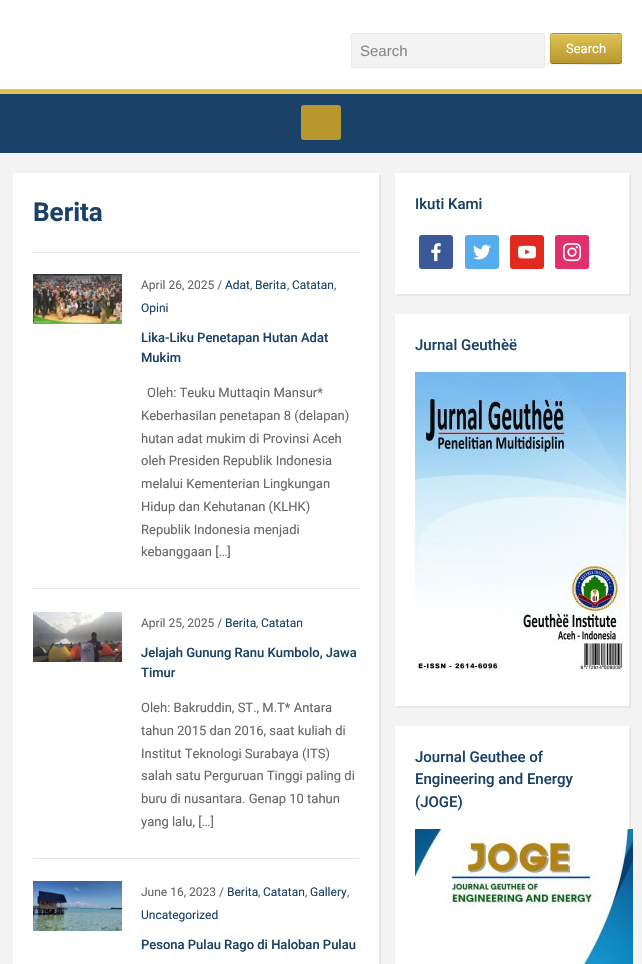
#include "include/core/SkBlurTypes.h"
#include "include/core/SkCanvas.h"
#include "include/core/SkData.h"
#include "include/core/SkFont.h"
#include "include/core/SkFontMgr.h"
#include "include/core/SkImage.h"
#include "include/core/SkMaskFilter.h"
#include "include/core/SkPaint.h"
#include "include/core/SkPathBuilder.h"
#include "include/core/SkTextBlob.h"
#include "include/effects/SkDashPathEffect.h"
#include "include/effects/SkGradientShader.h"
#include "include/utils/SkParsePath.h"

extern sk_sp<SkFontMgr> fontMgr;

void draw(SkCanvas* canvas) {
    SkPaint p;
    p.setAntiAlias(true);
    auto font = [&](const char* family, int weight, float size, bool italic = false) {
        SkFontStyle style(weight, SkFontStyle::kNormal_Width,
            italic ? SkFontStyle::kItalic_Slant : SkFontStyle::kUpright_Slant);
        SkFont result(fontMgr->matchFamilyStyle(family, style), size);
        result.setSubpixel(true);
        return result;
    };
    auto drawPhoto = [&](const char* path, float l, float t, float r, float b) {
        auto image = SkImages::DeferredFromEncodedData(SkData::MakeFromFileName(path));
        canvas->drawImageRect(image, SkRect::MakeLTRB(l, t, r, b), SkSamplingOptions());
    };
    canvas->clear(0xFFF3F3F3);
    p.setColor(0xFFFFFFFF);
    canvas->drawRect(SkRect::MakeLTRB(0, 0, 642, 89), p);
    p.setColor(0xFFF3F3F3);
    canvas->drawRoundRect(SkRect::MakeLTRB(351.5f, 33.5f, 544.5f, 67.5f), 1.5f, 1.5f, p);
    p.setStyle(SkPaint::kStroke_Style);
    p.setStrokeWidth(1);
    p.setColor(0xFFE9E9E9);
    canvas->drawRoundRect(SkRect::MakeLTRB(351.5f, 33.5f, 544.5f, 67.5f), 1.5f, 1.5f, p);
    auto font1 = font("Liberation Sans", 400, 15);
    p.setStyle(SkPaint::kFill_Style);
    p.setColor(0xFF888888);
    canvas->drawString("Search", 360, 56, font1, p);
    p.setColor(0x0D000000);
    p.setMaskFilter(SkMaskFilter::MakeBlur(kNormal_SkBlurStyle, 1));
    canvas->drawRoundRect(SkRect::MakeLTRB(550, 34, 622, 65), 3, 3, p);
    p.setMaskFilter(nullptr);
    p.setColor(0xFFB9972F);
    canvas->drawRoundRect(SkRect::MakeLTRB(550, 33, 622, 64), 3, 3, p);
    canvas->save();
    canvas->clipPath(SkPathBuilder().moveTo(553, 33).lineTo(619, 33).cubicTo(620.5f, 33, 622, 34.5f, 622, 36).lineTo(622, 61).cubicTo(622, 62.5f, 620.5f, 64, 619, 64).lineTo(553, 64).cubicTo(551.5f, 64, 550, 62.5f, 550, 61).lineTo(550, 36).cubicTo(550, 34.5f, 551.5f, 33, 553, 33).close().detach(), true);
    {
        const SkColor colors[] = {0xFFDFC253, 0xFFB9972F};
        const float stops[] = {0, 1};
        const SkPoint ends[] = {{586, 34}, {586, 63}};
        p.setShader(SkGradientShader::MakeLinear(ends, colors, stops, 2, SkTileMode::kClamp));
        p.setAlpha(255);
    }
    canvas->drawRect(SkRect::MakeLTRB(550, 34, 622, 63), p);
    canvas->restore();
    p.setShader(nullptr);
    p.setColor(0x33FFFFFF);
    canvas->drawPath(SkPathBuilder().moveTo(553, 35).lineTo(619, 35).cubicTo(620, 35, 621, 36, 621, 37).cubicTo(621, 31, 612, 34, 608, 34).lineTo(564, 34).cubicTo(560, 34, 551, 31, 551, 37).cubicTo(551, 36, 552, 35, 553, 35).close().detach(), p);
    p.setStyle(SkPaint::kStroke_Style);
    p.setColor(0x40000000);
    canvas->drawPath(SkPathBuilder().moveTo(621, 63).lineTo(620.5f, 63).cubicTo(618.5f, 64.5f, 570.5f, 63.5f, 564, 63.5f).lineTo(553, 63.5f).lineTo(551, 63).detach(), p);
    p.setColor(0x1A000000);
    canvas->drawPath(SkPathBuilder().moveTo(551, 63).cubicTo(549.5f, 61, 550.5f, 51, 550.5f, 48.5f).cubicTo(550.5f, 31, 547, 33.5f, 564, 33.5f).lineTo(608, 33.5f).cubicTo(625, 33.5f, 621.5f, 31, 621.5f, 48.5f).cubicTo(621.5f, 51, 622.5f, 61, 621, 63).detach(), p);
    auto font2 = font("Roboto", 400, 13);
    p.setStyle(SkPaint::kFill_Style);
    p.setColor(0xFFFFFFFF);
    canvas->drawString("Search", 566, 53, font2, p);
    p.setColor(0xFF1A4167);
    canvas->drawRect(SkRect::MakeLTRB(0, 94, 642, 153), p);
    p.setColor(0xFFDFC253);
    canvas->drawRect(SkRect::MakeLTRB(0, 89, 642, 94), p);
    p.setColor(0xFFB9972F);
    canvas->drawRoundRect(SkRect::MakeLTRB(301, 105, 341, 140), 3, 3, p);
    p.setColor(0xFFE7E7E7);
    canvas->drawPath(SkPathBuilder().moveTo(15, 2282).lineTo(15, 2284).lineTo(381, 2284).lineTo(381, 175).lineTo(379, 175).lineTo(379, 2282).close().detach(), p);
    p.setColor(0xFFFFFFFF);
    canvas->drawRect(SkRect::MakeLTRB(13, 173, 379, 964), p);
    auto font3 = font("Roboto", 700, 26);
    p.setColor(0xFF1A4167);
    canvas->drawString("Berita", 33, 221, font3, p);
    p.setColor(0xFFE7E7E7);
    canvas->drawRect(SkRect::MakeLTRB(33, 252, 359, 253), p);
    drawPhoto("media/1.png", 33, 274, 122, 324);
    auto font4 = font("Roboto", 400, 12);
    p.setColor(0xFF666666);
    canvas->drawString("April 26, 2025 /", 141, 289, font4, p);
    p.setColor(0xFF1A4167);
    canvas->drawString("Adat", 225, 289, font4, p);
    p.setColor(0xFF666666);
    canvas->drawString(",", 250, 289, font4, p);
    p.setColor(0xFF1A4167);
    canvas->drawString("Berita", 255, 289, font4, p);
    p.setColor(0xFF666666);
    canvas->drawString(",", 287, 289, font4, p);
    p.setColor(0xFF1A4167);
    canvas->drawString("Catatan", 292, 289, font4, p);
    p.setColor(0xFF666666);
    canvas->drawString(",", 334, 289, font4, p);
    p.setColor(0xFF1A4167);
    canvas->drawString("Opini", 141, 312, font4, p);
    auto font5 = font("Roboto", 500, 13);
    canvas->drawString("Lika-Liku Penetapan Hutan Adat", 141, 342, font5, p);
    canvas->drawString("Mukim", 141, 362, font5, p);
    p.setColor(0xFF666666);
    {
        const struct { const char* s; float x, y; } items[] = {
            {"Oleh: Teuku Muttaqin Mansur*", 147, 397},
            {"Keberhasilan penetapan 8 (delapan)", 141, 420},
            {"hutan adat mukim di Provinsi Aceh", 141, 443},
            {"oleh Presiden Republik Indonesia", 141, 465},
            {"melalui Kementerian Lingkungan", 141, 488},
            {"Hidup dan Kehutanan (KLHK)", 141, 511},
            {"Republik Indonesia menjadi", 141, 534},
            {"kebanggaan […]", 141, 556},
        };
        for (auto [s, x, y] : items) {
            canvas->drawString(s, x, y, font2, p);
        }
    }
    p.setColor(0xFFE7E7E7);
    canvas->drawRect(SkRect::MakeLTRB(33, 588, 359, 589), p);
    drawPhoto("media/2.png", 33, 612, 122, 662);
    p.setColor(0xFF666666);
    canvas->drawString("April 25, 2025 /", 141, 627, font4, p);
    p.setColor(0xFF1A4167);
    canvas->drawString("Berita", 225, 627, font4, p);
    p.setColor(0xFF666666);
    canvas->drawString(",", 256, 627, font4, p);
    p.setColor(0xFF1A4167);
    canvas->drawString("Catatan", 261, 627, font4, p);
    canvas->drawString("Jelajah Gunung Ranu Kumbolo, Jawa", 141, 657, font5, p);
    canvas->drawString("Timur", 141, 677, font5, p);
    p.setColor(0xFF666666);
    {
        const struct { const char* s; float x, y; } items[] = {
            {"Oleh: Bakruddin, ST., M.T* Antara", 141, 712},
            {"tahun 2015 dan 2016, saat kuliah di", 141, 735},
            {"Institut Teknologi Surabaya (ITS)", 141, 758},
            {"salah satu Perguruan Tinggi paling di", 141, 780},
            {"buru di nusantara. Genap 10 tahun", 141, 803},
            {"yang lalu, […]", 141, 826},
        };
        for (auto [s, x, y] : items) {
            canvas->drawString(s, x, y, font2, p);
        }
    }
    p.setColor(0xFFE7E7E7);
    canvas->drawRect(SkRect::MakeLTRB(33, 858, 359, 859), p);
    drawPhoto("media/3.png", 33, 881, 122, 931);
    p.setColor(0xFF666666);
    canvas->drawString("June 16, 2023 /", 141, 896, font4, p);
    p.setColor(0xFF1A4167);
    canvas->drawString("Berita", 227, 896, font4, p);
    p.setColor(0xFF666666);
    canvas->drawString(",", 258, 896, font4, p);
    p.setColor(0xFF1A4167);
    canvas->drawString("Catatan", 263, 896, font4, p);
    p.setColor(0xFF666666);
    canvas->drawString(",", 305, 896, font4, p);
    p.setColor(0xFF1A4167);
    canvas->drawString("Gallery", 310, 896, font4, p);
    p.setColor(0xFF666666);
    canvas->drawString(",", 347, 896, font4, p);
    p.setColor(0xFF1A4167);
    canvas->drawString("Uncategorized", 141, 919, font4, p);
    canvas->drawString("Pesona Pulau Rago di Haloban Pulau", 141, 949, font5, p);
    p.setColor(0xFFE7E7E7);
    canvas->drawPath(SkPathBuilder().moveTo(397, 294).lineTo(397, 296).lineTo(631, 296).lineTo(631, 175).lineTo(629, 175).lineTo(629, 294).close().detach(), p);
    p.setColor(0xFFFFFFFF);
    canvas->drawRect(SkRect::MakeLTRB(395, 173, 629, 294), p);
    auto font6 = font("Roboto", 500, 15);
    p.setColor(0xFF1A4167);
    canvas->drawString("Ikuti Kami", 415, 209, font6, p);
    p.setColor(0xFF3B5998);
    canvas->drawRoundRect(SkRect::MakeLTRB(419, 235, 453, 269), 3, 3, p);
    drawPhoto("media/4.png", 431, 243, 441, 262);
    p.setColor(0xFF55ACEE);
    canvas->drawRoundRect(SkRect::MakeLTRB(465, 235, 499, 269), 3, 3, p);
    drawPhoto("media/5.png", 473, 244, 491, 260);
    p.setColor(0xFFE02A20);
    canvas->drawRoundRect(SkRect::MakeLTRB(510, 235, 544, 269), 3, 3, p);
    drawPhoto("media/6.png", 518, 245, 536, 259);
    p.setColor(0xFFE1306C);
    canvas->drawRoundRect(SkRect::MakeLTRB(555, 235, 589, 269), 3, 3, p);
    drawPhoto("media/7.png", 563, 243, 581, 262);
    p.setColor(0xFFE7E7E7);
    canvas->drawPath(SkPathBuilder().moveTo(397, 706).lineTo(397, 708).lineTo(631, 708).lineTo(631, 316).lineTo(629, 316).lineTo(629, 706).close().detach(), p);
    p.setColor(0xFFFFFFFF);
    canvas->drawRect(SkRect::MakeLTRB(395, 314, 629, 706), p);
    p.setColor(0xFF1A4167);
    canvas->drawString("Jurnal Geuthèë", 415, 350, font6, p);
    drawPhoto("media/8.png", 415, 372, 626, 672);
    p.setColor(0xFFE7E7E7);
    canvas->drawPath(SkPathBuilder().moveTo(397, 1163).lineTo(397, 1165).lineTo(631, 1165).lineTo(631, 728).lineTo(629, 728).lineTo(629, 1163).close().detach(), p);
    p.setColor(0xFFFFFFFF);
    canvas->drawRect(SkRect::MakeLTRB(395, 726, 629, 964), p);
    p.setColor(0xFF1A4167);
    {
        const struct { const char* s; float x, y; } items[] = {
            {"Journal Geuthee of", 415, 762},
            {"Engineering and Energy", 415, 784},
            {"(JOGE)", 415, 807},
        };
        for (auto [s, x, y] : items) {
            canvas->drawString(s, x, y, font6, p);
        }
    }
    drawPhoto("media/9.png", 415, 829, 633, 964);
}
